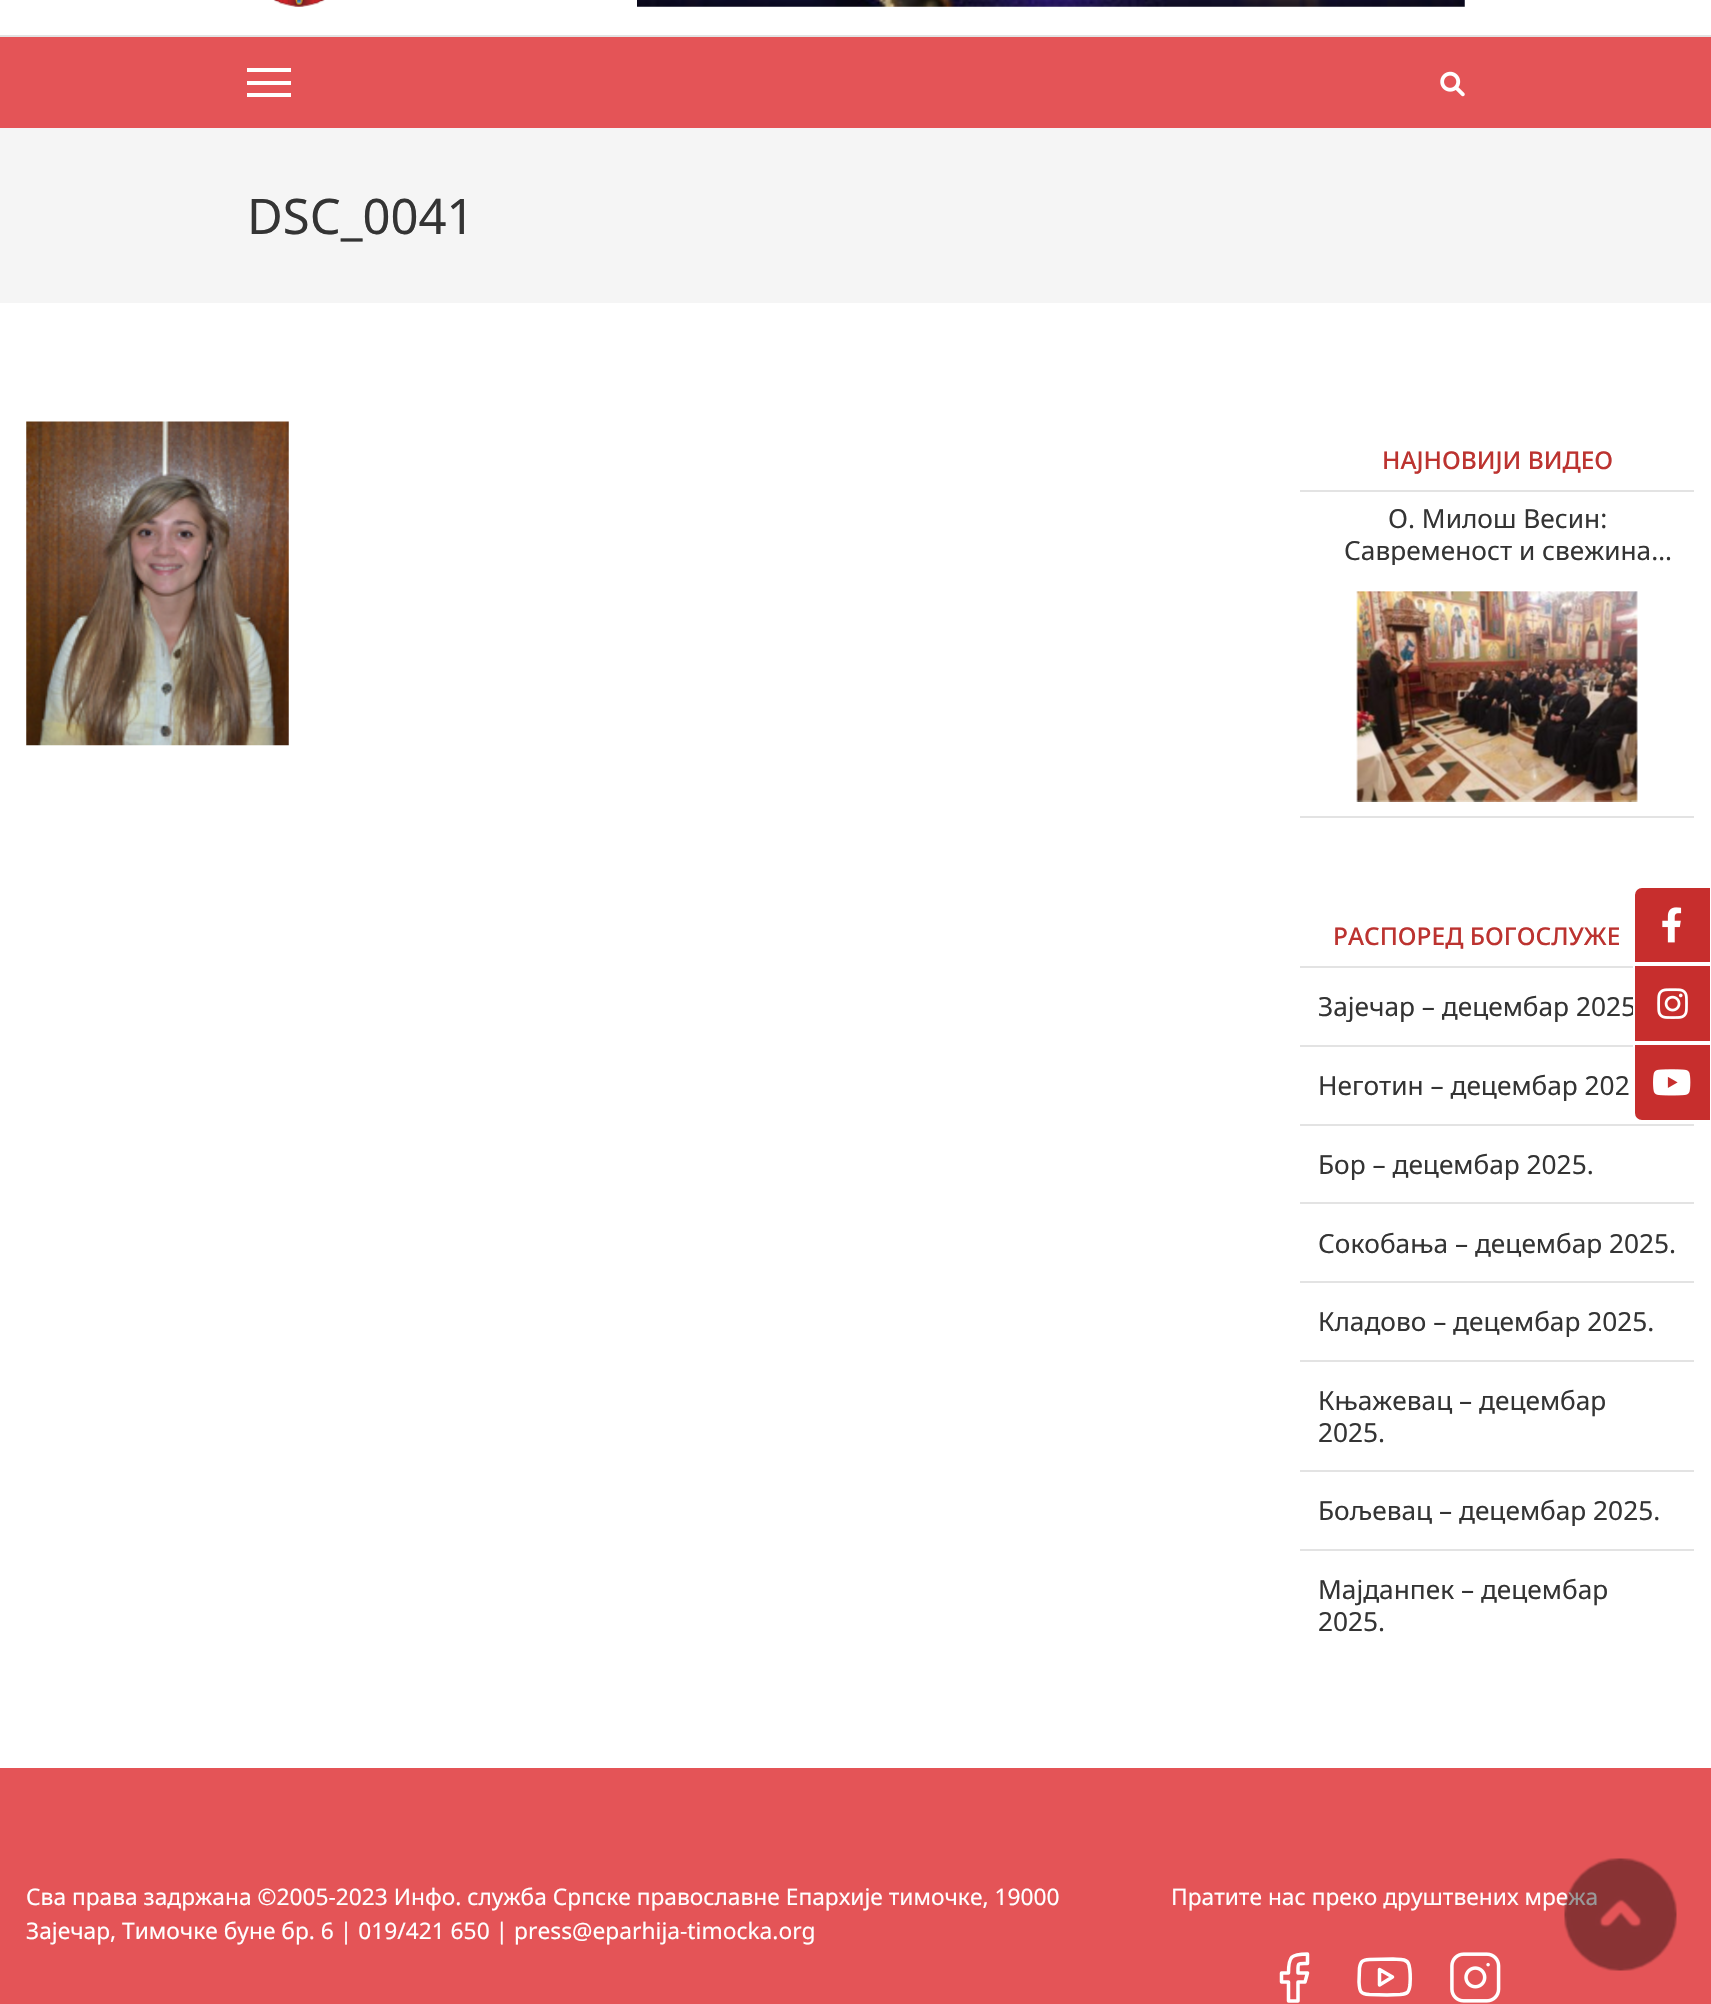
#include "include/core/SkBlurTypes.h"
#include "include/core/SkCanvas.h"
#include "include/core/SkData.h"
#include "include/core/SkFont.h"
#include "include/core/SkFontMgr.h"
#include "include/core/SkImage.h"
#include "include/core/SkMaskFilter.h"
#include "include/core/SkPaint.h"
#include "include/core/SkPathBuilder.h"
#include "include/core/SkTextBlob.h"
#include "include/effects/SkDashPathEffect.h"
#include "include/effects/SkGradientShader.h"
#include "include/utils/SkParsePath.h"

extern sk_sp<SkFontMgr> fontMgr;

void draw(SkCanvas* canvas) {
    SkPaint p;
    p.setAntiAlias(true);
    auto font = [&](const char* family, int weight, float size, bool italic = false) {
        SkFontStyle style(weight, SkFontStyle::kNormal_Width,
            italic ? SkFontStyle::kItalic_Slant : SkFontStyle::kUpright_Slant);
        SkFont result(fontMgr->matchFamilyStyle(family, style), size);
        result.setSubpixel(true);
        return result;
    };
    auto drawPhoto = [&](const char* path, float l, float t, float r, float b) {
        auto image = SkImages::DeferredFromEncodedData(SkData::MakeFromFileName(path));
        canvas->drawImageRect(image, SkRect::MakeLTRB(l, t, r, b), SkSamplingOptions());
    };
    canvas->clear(0xFFFFFFFF);
    p.setColor(0xFFE3E3E3);
    canvas->drawRect(SkRect::MakeLTRB(0, 35, 1711, 37), p);
    drawPhoto("media/1.png", 273, 0, 325, 7);
    drawPhoto("media/2.png", 637, 0, 1465, 7);
    {
        const struct { float l, t, r, b; SkColor color; } items[] = {
            {0, 37, 1711, 128, 0xFFE45457},
            {247, 68, 291, 72, 0xFFFFFFFF},
            {247, 81, 291, 85, 0xFFFFFFFF},
            {247, 93, 291, 97, 0xFFFFFFFF},
        };
        for (auto [l, t, r, b, color] : items) {
            p.setColor(color);
            canvas->drawRect(SkRect::MakeLTRB(l, t, r, b), p);
        }
    }
    drawPhoto("media/3.png", 1440, 71, 1465, 97);
    p.setColor(0xFFF5F5F5);
    canvas->drawRect(SkRect::MakeLTRB(0, 128, 1711, 303), p);
    auto font1 = font("Noto Sans", 400, 49);
    p.setColor(0xFF343434);
    canvas->drawString("DSC_0041", 247, 234, font1, p);
    drawPhoto("media/4.png", 26, 421, 289, 746);
    p.setColor(0xFFE3E3E3);
    canvas->drawRect(SkRect::MakeLTRB(1300, 490, 1694, 492), p);
    auto font2 = font("Noto Sans", 500, 24.5f);
    p.setColor(0xFFBC3330);
    canvas->drawString("НАЈНОВИЈИ ВИДЕО", 1382, 469, font2, p);
    p.setColor(0xFFE3E3E3);
    canvas->drawRect(SkRect::MakeLTRB(1300, 816, 1694, 818), p);
    auto font3 = font("Noto Sans", 400, 26.25f);
    p.setColor(0xFF343434);
    canvas->drawString("О. Милош Весин:", 1388, 528, font3, p);
    canvas->save();
    canvas->clipRect(SkRect::MakeLTRB(1300, 502, 1694, 565));
    canvas->drawString("Савременост и свежина…", 1344, 560, font3, p);
    canvas->restore();
    drawPhoto("media/5.png", 1356, 591, 1638, 802);
    p.setColor(0xFFE3E3E3);
    canvas->drawRect(SkRect::MakeLTRB(1300, 966, 1633, 968), p);
    p.setColor(0xFFBC3330);
    canvas->drawString("РАСПОРЕД БОГОСЛУЖЕ", 1333, 945, font2, p);
    p.setColor(0xFFE3E3E3);
    canvas->drawRect(SkRect::MakeLTRB(1300, 1045, 1633, 1047), p);
    canvas->save();
    canvas->clipRect(SkRect::MakeLTRB(1318, 991, 1677, 1022));
    p.setColor(0xFF343434);
    canvas->drawString("Зајечар – децембар 2025", 1318, 1016, font3, p);
    canvas->restore();
    p.setColor(0xFFE3E3E3);
    canvas->drawRect(SkRect::MakeLTRB(1300, 1124, 1694, 1126), p);
    canvas->save();
    canvas->clipRect(SkRect::MakeLTRB(1318, 1069, 1677, 1101));
    p.setColor(0xFF343434);
    canvas->drawString("Неготин – децембар 202", 1318, 1095, font3, p);
    canvas->restore();
    p.setColor(0xFFE3E3E3);
    canvas->drawRect(SkRect::MakeLTRB(1300, 1202, 1694, 1204), p);
    canvas->save();
    canvas->clipRect(SkRect::MakeLTRB(1318, 1148, 1677, 1180));
    p.setColor(0xFF343434);
    canvas->drawString("Бор – децембар 2025.", 1318, 1174, font3, p);
    canvas->restore();
    p.setColor(0xFFE3E3E3);
    canvas->drawRect(SkRect::MakeLTRB(1300, 1281, 1694, 1283), p);
    canvas->save();
    canvas->clipRect(SkRect::MakeLTRB(1318, 1227, 1677, 1258));
    p.setColor(0xFF343434);
    canvas->drawString("Сокобања – децембар 2025.", 1318, 1253, font3, p);
    canvas->restore();
    p.setColor(0xFFE3E3E3);
    canvas->drawRect(SkRect::MakeLTRB(1300, 1360, 1694, 1362), p);
    canvas->save();
    canvas->clipRect(SkRect::MakeLTRB(1318, 1306, 1677, 1337));
    p.setColor(0xFF343434);
    canvas->drawString("Кладово – децембар 2025.", 1318, 1331, font3, p);
    canvas->restore();
    p.setColor(0xFFE3E3E3);
    canvas->drawRect(SkRect::MakeLTRB(1300, 1470, 1694, 1472), p);
    p.setColor(0xFF343434);
    canvas->drawString("Књажевац – децембар", 1318, 1410, font3, p);
    canvas->drawString("2025.", 1318, 1442, font3, p);
    p.setColor(0xFFE3E3E3);
    canvas->drawRect(SkRect::MakeLTRB(1300, 1549, 1694, 1551), p);
    canvas->save();
    canvas->clipRect(SkRect::MakeLTRB(1318, 1495, 1677, 1526));
    p.setColor(0xFF343434);
    canvas->drawString("Бољевац – децембар 2025.", 1318, 1520, font3, p);
    canvas->restore();
    canvas->drawString("Мајданпек – децембар", 1318, 1599, font3, p);
    canvas->drawString("2025.", 1318, 1631, font3, p);
    p.setColor(0xFFE45457);
    canvas->drawRect(SkRect::MakeLTRB(0, 1768, 1711, 2004), p);
    auto font4 = font("Noto Sans", 400, 22.75f);
    p.setColor(0xFFFFFFFF);
    {
        const struct { const char* s; float x, y; } items[] = {
            {"Сва права задржана ©2005-2023 Инфо. служба Српске православне Епархије тимочке, 19000", 26, 1905},
            {"Зајечар, Тимочке буне бр. 6 | 019/421 650 | press@eparhija-timocka.org", 26, 1939},
            {"Пратите нас преко друштвених мрежа", 1171, 1905},
        };
        for (auto [s, x, y] : items) {
            canvas->drawString(s, x, y, font4, p);
        }
    }
    p.setStyle(SkPaint::kStroke_Style);
    p.setStrokeWidth(3.5f);
    p.setStrokeCap(SkPaint::kRound_Cap);
    p.setStrokeJoin(SkPaint::kRound_Join);
    canvas->drawPath(SkPathBuilder().moveTo(1307.5f, 1954).cubicTo(1291, 1954, 1288.5f, 1956.5f, 1288.5f, 1973).lineTo(1281.5f, 1973).lineTo(1281.5f, 1982).lineTo(1288.5f, 1982).lineTo(1288.5f, 2001).lineTo(1298, 2001).lineTo(1298, 1982).lineTo(1305, 1982).lineTo(1307.5f, 1973).lineTo(1298, 1973).cubicTo(1298, 1962.5f, 1297, 1963.5f, 1307.5f, 1963.5f).close().detach(), p);
    canvas->drawPath(SkPathBuilder().moveTo(1409, 1965).cubicTo(1407.5f, 1958, 1398, 1959.5f, 1393, 1959).lineTo(1369.5f, 1959.5f).cubicTo(1362.5f, 1960, 1360.5f, 1961, 1359.5f, 1968).lineTo(1359, 1982).cubicTo(1359.5f, 1991, 1360, 1994, 1369.5f, 1994.5f).lineTo(1387, 1995).lineTo(1400, 1994.5f).cubicTo(1407.5f, 1994, 1409, 1992.5f, 1410, 1985).cubicTo(1410.5f, 1978, 1410.5f, 1971.5f, 1409, 1965).close().moveTo(1379.5f, 1985).lineTo(1392.5f, 1977).lineTo(1379.5f, 1969.5f).close().detach(), p);
    drawPhoto("media/6.png", 1450, 1952, 1501, 2003);
    p.setStyle(SkPaint::kFill_Style);
    p.setColor(0xFFC72E2D);
    canvas->drawPath(SkPathBuilder().moveTo(1642, 887).lineTo(1711, 887).lineTo(1711, 963).lineTo(1634, 963).lineTo(1634, 895).cubicTo(1634, 890.5f, 1637.5f, 887, 1642, 887).close().detach(), p);
    p.setStyle(SkPaint::kStroke_Style);
    p.setStrokeWidth(2);
    p.setStrokeCap(SkPaint::kButt_Cap);
    p.setStrokeJoin(SkPaint::kMiter_Join);
    p.setColor(0xFFFFFFFF);
    canvas->drawPath(SkPathBuilder().moveTo(1642, 887).lineTo(1711, 887).lineTo(1711, 963).lineTo(1634, 963).lineTo(1634, 895).cubicTo(1634, 890.5f, 1637.5f, 887, 1642, 887).close().detach(), p);
    drawPhoto("media/7.png", 1662, 907, 1682, 943);
    p.setStyle(SkPaint::kFill_Style);
    p.setColor(0xFFC72E2D);
    canvas->drawRect(SkRect::MakeLTRB(1634, 965, 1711, 1042), p);
    p.setStyle(SkPaint::kStroke_Style);
    p.setColor(0xFFFFFFFF);
    canvas->drawRect(SkRect::MakeLTRB(1634, 965, 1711, 1042), p);
    drawPhoto("media/8.png", 1657, 988, 1688, 1019);
    p.setStyle(SkPaint::kFill_Style);
    p.setColor(0xFFC72E2D);
    canvas->drawPath(SkPathBuilder().moveTo(1634, 1044).lineTo(1711, 1044).lineTo(1711, 1121).lineTo(1642, 1121).cubicTo(1637.5f, 1121, 1634, 1117.5f, 1634, 1113).close().detach(), p);
    p.setStyle(SkPaint::kStroke_Style);
    p.setColor(0xFFFFFFFF);
    canvas->drawPath(SkPathBuilder().moveTo(1634, 1044).lineTo(1711, 1044).lineTo(1711, 1121).lineTo(1642, 1121).cubicTo(1637.5f, 1121, 1634, 1117.5f, 1634, 1113).close().detach(), p);
    drawPhoto("media/9.png", 1653, 1069, 1691, 1096);
    drawPhoto("media/10.png", 1564, 1858, 1677, 1971);
}
